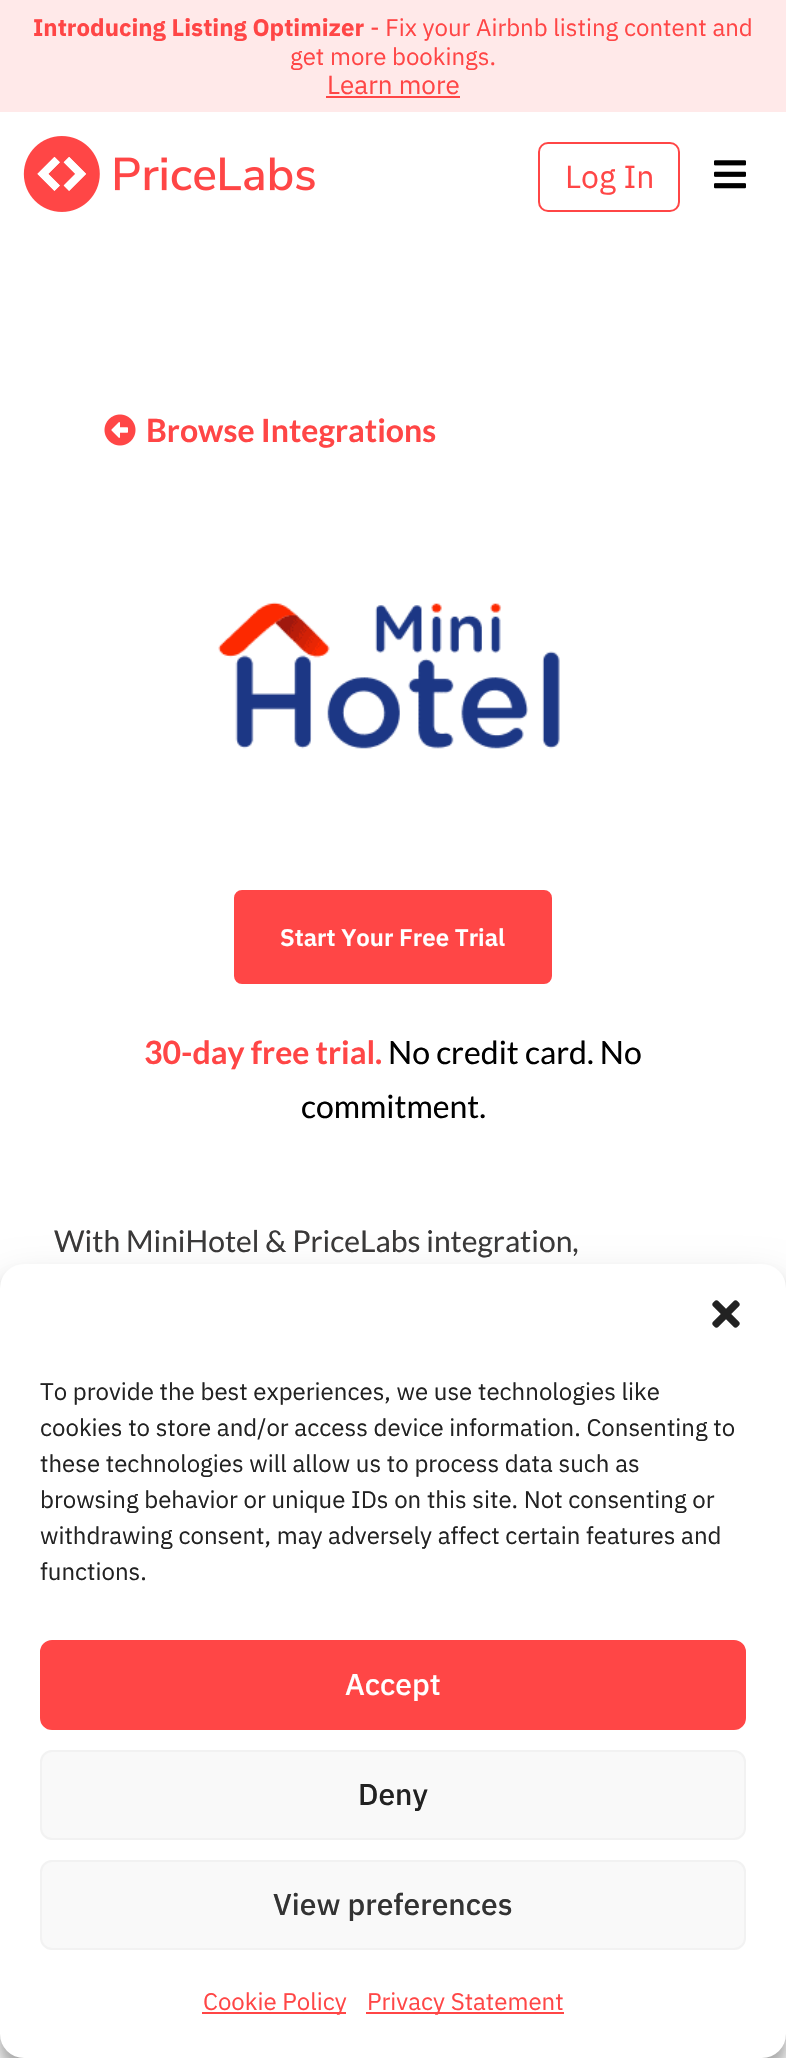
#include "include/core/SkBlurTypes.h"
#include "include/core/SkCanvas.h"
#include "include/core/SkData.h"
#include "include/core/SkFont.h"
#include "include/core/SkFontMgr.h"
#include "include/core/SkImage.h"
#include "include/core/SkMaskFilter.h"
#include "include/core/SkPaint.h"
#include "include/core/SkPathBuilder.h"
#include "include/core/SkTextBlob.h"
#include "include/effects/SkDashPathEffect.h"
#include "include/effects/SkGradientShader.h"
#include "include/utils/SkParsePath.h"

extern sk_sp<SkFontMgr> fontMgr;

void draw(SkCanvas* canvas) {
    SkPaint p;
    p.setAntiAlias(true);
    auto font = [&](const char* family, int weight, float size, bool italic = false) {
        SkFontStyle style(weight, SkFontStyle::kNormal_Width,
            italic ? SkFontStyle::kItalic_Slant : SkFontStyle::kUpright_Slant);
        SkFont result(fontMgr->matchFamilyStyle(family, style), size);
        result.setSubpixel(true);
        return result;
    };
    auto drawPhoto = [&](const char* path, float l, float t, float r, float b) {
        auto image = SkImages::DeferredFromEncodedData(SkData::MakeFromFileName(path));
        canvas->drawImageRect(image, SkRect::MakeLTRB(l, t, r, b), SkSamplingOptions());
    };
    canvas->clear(0xFFFFFFFF);
    p.setColor(0xFFFFE9E9);
    canvas->drawRect(SkRect::MakeLTRB(0, 0, 786, 112), p);
    auto font1 = font("IBM Plex Sans", 700, 24);
    p.setColor(0xFFFF4646);
    canvas->drawString("Introducing Listing Optimizer", 33, 36, font1, p);
    auto font2 = font("IBM Plex Sans", 400, 24);
    canvas->drawString("- Fix your Airbnb listing content and", 370, 36, font2, p);
    canvas->drawString("get more bookings.", 290, 65, font2, p);
    auto font3 = font("IBM Plex Sans", 400, 26);
    canvas->drawString("Learn more", 327, 94, font3, p);
    canvas->drawRect(SkRect::MakeLTRB(326, 96, 460, 98), p);
    drawPhoto("media/1.png", 23, 136, 315, 212);
    p.setStyle(SkPaint::kStroke_Style);
    p.setStrokeWidth(2);
    canvas->drawRoundRect(SkRect::MakeLTRB(539, 143, 679, 211), 9, 9, p);
    auto font4 = font("IBM Plex Sans", 400, 32);
    p.setStyle(SkPaint::kFill_Style);
    canvas->drawString("Log In", 565, 188, font4, p);
    drawPhoto("media/2.png", 714, 160, 746, 189);
    drawPhoto("media/3.png", 104, 414, 136, 446);
    auto font5 = font("Lato", 700, 32);
    canvas->drawString("Browse Integrations", 146, 442, font5, p);
    drawPhoto("media/4.png", 218, 602, 560, 749);
    canvas->drawRoundRect(SkRect::MakeLTRB(237, 893, 549, 981), 5, 5, p);
    p.setStyle(SkPaint::kStroke_Style);
    p.setStrokeWidth(6);
    canvas->drawRoundRect(SkRect::MakeLTRB(237, 893, 549, 981), 5, 5, p);
    auto font6 = font("IBM Plex Sans", 600, 24);
    p.setStyle(SkPaint::kFill_Style);
    p.setColor(0xFFFFFFFF);
    canvas->drawString("Start Your Free Trial", 280, 946, font6, p);
    p.setColor(0xFFFF4646);
    canvas->drawString("30-day free trial.", 144, 1064, font5, p);
    auto font7 = font("Lato", 400, 32);
    p.setColor(0xFF000000);
    canvas->drawString("No credit card. No", 388, 1064, font7, p);
    canvas->drawString("commitment.", 301, 1118, font7, p);
    auto font8 = font("Lato", 400, 30);
    p.setColor(0xFF3A3939);
    canvas->drawString("With MiniHotel & PriceLabs integration,", 54, 1252, font8, p);
    p.setColor(0x3B000000);
    p.setMaskFilter(SkMaskFilter::MakeBlur(kNormal_SkBlurStyle, 6));
    canvas->drawRoundRect(SkRect::MakeLTRB(0, 1276, 786, 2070), 24, 24, p);
    p.setMaskFilter(nullptr);
    p.setColor(0x30000000);
    p.setMaskFilter(SkMaskFilter::MakeBlur(kNormal_SkBlurStyle, 20));
    canvas->drawRoundRect(SkRect::MakeLTRB(0, 1284, 786, 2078), 24, 24, p);
    p.setMaskFilter(nullptr);
    p.setColor(0xFF808080);
    p.setMaskFilter(SkMaskFilter::MakeBlur(kNormal_SkBlurStyle, 5));
    canvas->drawRoundRect(SkRect::MakeLTRB(646, 1910, 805, 2030), 4, 4, p);
    p.setMaskFilter(nullptr);
    p.setColor(0xFFFFFFFF);
    canvas->drawRoundRect(SkRect::MakeLTRB(0, 1264, 786, 2058), 24, 24, p);
    drawPhoto("media/5.png", 712, 1300, 740, 1328);
    p.setColor(0xFF222222);
    {
        const struct { const char* s; float x, y; } items[] = {
            {"To provide the best experiences, we use technologies like", 40, 1400},
            {"cookies to store and/or access device information. Consenting to", 40, 1436},
            {"these technologies will allow us to process data such as", 40, 1472},
            {"browsing behavior or unique IDs on this site. Not consenting or", 40, 1508},
            {"withdrawing consent, may adversely affect certain features and", 40, 1544},
            {"functions.", 40, 1580},
        };
        for (auto [s, x, y] : items) {
            canvas->drawString(s, x, y, font2, p);
        }
    }
    p.setColor(0xFFFF4646);
    canvas->drawRoundRect(SkRect::MakeLTRB(41, 1641, 745, 1729), 11, 11, p);
    p.setStyle(SkPaint::kStroke_Style);
    p.setStrokeWidth(2);
    canvas->drawRoundRect(SkRect::MakeLTRB(41, 1641, 745, 1729), 11, 11, p);
    auto font9 = font("IBM Plex Sans", 500, 30);
    p.setStyle(SkPaint::kFill_Style);
    p.setColor(0xFFFFFFFF);
    canvas->drawString("Accept", 345, 1695, font9, p);
    p.setColor(0xFFF9F9F9);
    canvas->drawRoundRect(SkRect::MakeLTRB(41, 1751, 745, 1839), 11, 11, p);
    p.setStyle(SkPaint::kStroke_Style);
    p.setColor(0xFFF2F2F2);
    canvas->drawRoundRect(SkRect::MakeLTRB(41, 1751, 745, 1839), 11, 11, p);
    p.setStyle(SkPaint::kFill_Style);
    p.setColor(0xFF222222);
    canvas->drawString("Deny", 358, 1805, font9, p);
    p.setColor(0xFFF9F9F9);
    canvas->drawRoundRect(SkRect::MakeLTRB(41, 1861, 745, 1949), 11, 11, p);
    p.setStyle(SkPaint::kStroke_Style);
    p.setColor(0xFFF2F2F2);
    canvas->drawRoundRect(SkRect::MakeLTRB(41, 1861, 745, 1949), 11, 11, p);
    p.setStyle(SkPaint::kFill_Style);
    p.setColor(0xFF333333);
    canvas->drawString("View preferences", 273, 1915, font9, p);
    p.setColor(0xFFFF4646);
    canvas->drawRect(SkRect::MakeLTRB(202, 2012, 346, 2014), p);
    canvas->drawString("Cookie Policy", 203, 2010, font2, p);
    canvas->drawRect(SkRect::MakeLTRB(366, 2012, 564, 2014), p);
    canvas->drawString("Privacy Statement", 367, 2010, font2, p);
}
